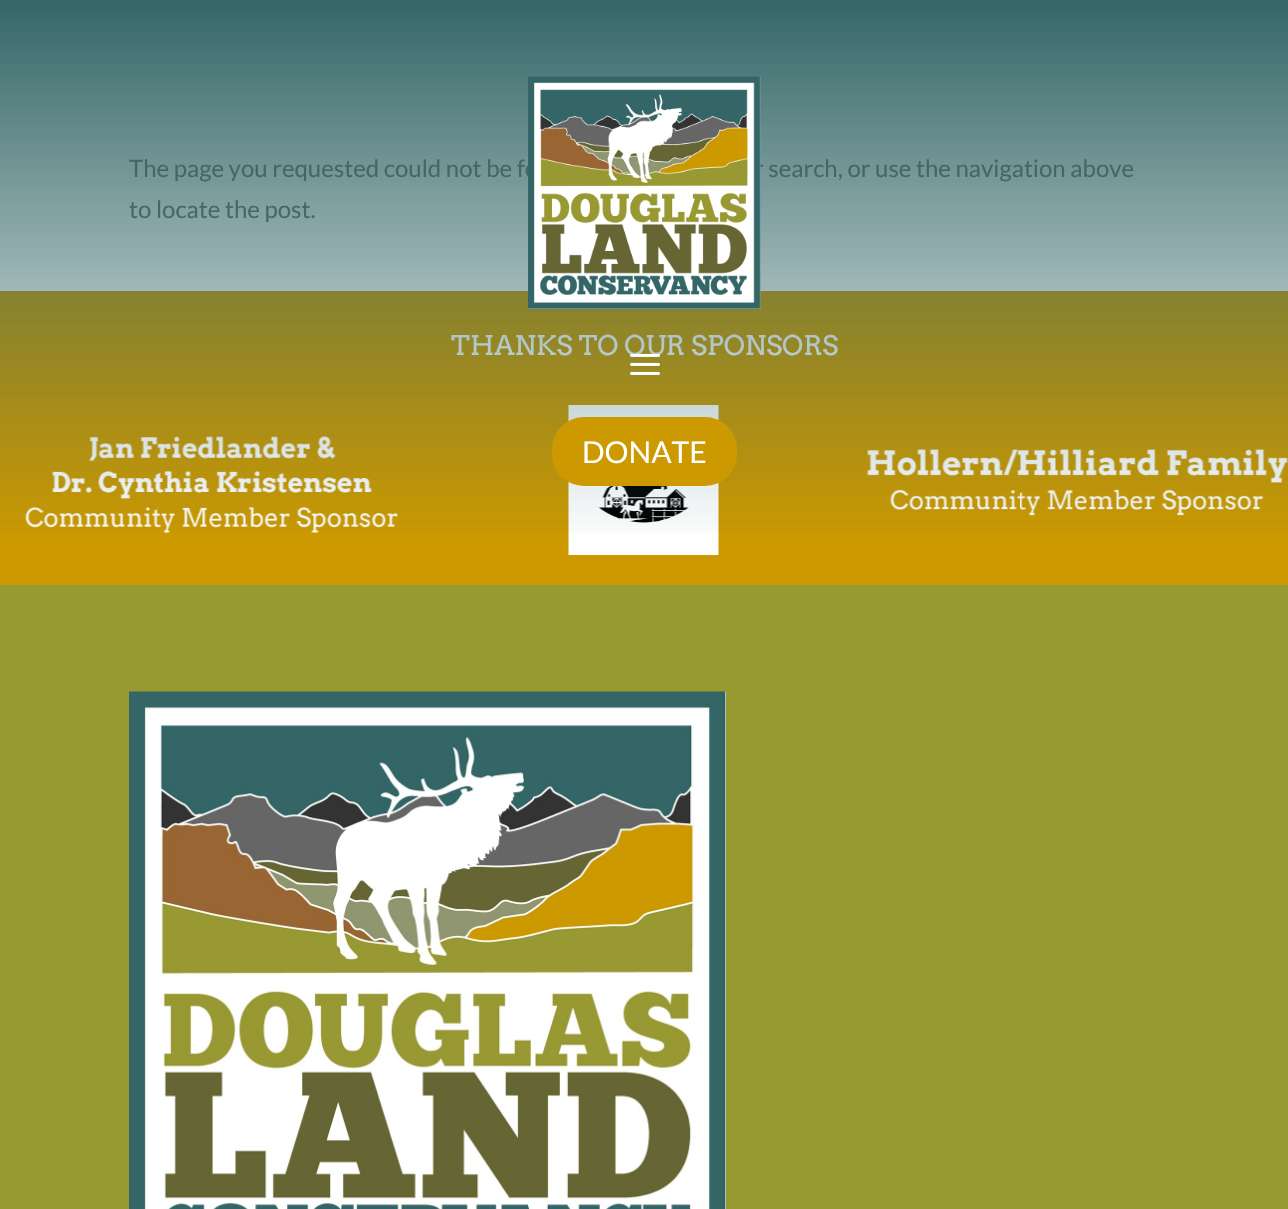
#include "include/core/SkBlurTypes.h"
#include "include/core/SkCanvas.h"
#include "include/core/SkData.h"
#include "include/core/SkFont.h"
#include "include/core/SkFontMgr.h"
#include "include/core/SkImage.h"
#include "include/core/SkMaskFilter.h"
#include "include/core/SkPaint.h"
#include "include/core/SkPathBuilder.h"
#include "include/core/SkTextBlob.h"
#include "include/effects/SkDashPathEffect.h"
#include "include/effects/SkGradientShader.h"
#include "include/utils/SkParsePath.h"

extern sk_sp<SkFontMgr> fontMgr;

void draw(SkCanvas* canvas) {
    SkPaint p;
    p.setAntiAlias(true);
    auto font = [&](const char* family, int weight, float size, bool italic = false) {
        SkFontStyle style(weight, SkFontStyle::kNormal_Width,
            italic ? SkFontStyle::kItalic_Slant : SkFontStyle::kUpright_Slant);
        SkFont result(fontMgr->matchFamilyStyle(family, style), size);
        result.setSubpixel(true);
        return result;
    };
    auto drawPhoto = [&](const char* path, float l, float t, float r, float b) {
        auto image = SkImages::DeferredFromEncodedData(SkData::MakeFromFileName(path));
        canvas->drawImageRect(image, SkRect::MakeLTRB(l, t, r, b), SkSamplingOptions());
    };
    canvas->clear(0xFFFFFFFF);
    auto font1 = font("Lato", 400, 24);
    p.setColor(0xFF666666);
    {
        const struct { const char* s; float x, y; } items[] = {
            {"The page you requested could not be fo", 129, 177},
            {"r search, or use the navigation above", 754, 177},
            {"to locate the post.", 129, 218},
        };
        for (auto [s, x, y] : items) {
            canvas->drawString(s, x, y, font1, p);
        }
    }
    p.setColor(0xFFCC9900);
    canvas->drawRect(SkRect::MakeLTRB(0, 291, 1288, 585), p);
    auto font2 = font("Arvo", 400, 27);
    p.setColor(0xFFFFFFFF);
    canvas->drawString("THANKS TO OUR SPONSORS", 451, 355, font2, p);
    drawPhoto("media/1.png", 25, 436, 398, 533);
    drawPhoto("media/2.png", 568, 405, 719, 555);
    drawPhoto("media/3.png", 867, 449, 1288, 516);
    p.setColor(0xFF979A30);
    canvas->drawRect(SkRect::MakeLTRB(0, 585, 1288, 1209), p);
    drawPhoto("media/4.png", 129, 691, 726, 1209);
    {
        const SkColor colors[] = {0xFF346667, 0x00346667};
        const float stops[] = {0, 1};
        const SkPoint ends[] = {{644, 0}, {644, 545}};
        p.setShader(SkGradientShader::MakeLinear(ends, colors, stops, 2, SkTileMode::kClamp));
        p.setAlpha(255);
    }
    canvas->drawRect(SkRect::MakeLTRB(0, 0, 1288, 533), p);
    drawPhoto("media/5.png", 528, 76, 761, 309);
    drawPhoto("media/6.png", 630, 353, 660, 375);
    p.setShader(nullptr);
    p.setColor(0xFFCC9900);
    canvas->drawRoundRect(SkRect::MakeLTRB(552, 417, 737, 486), 32, 32, p);
    auto font3 = font("Lato", 400, 30);
    p.setColor(0xFFFFFFFF);
    canvas->drawString("DONATE", 582, 463, font3, p);
}
